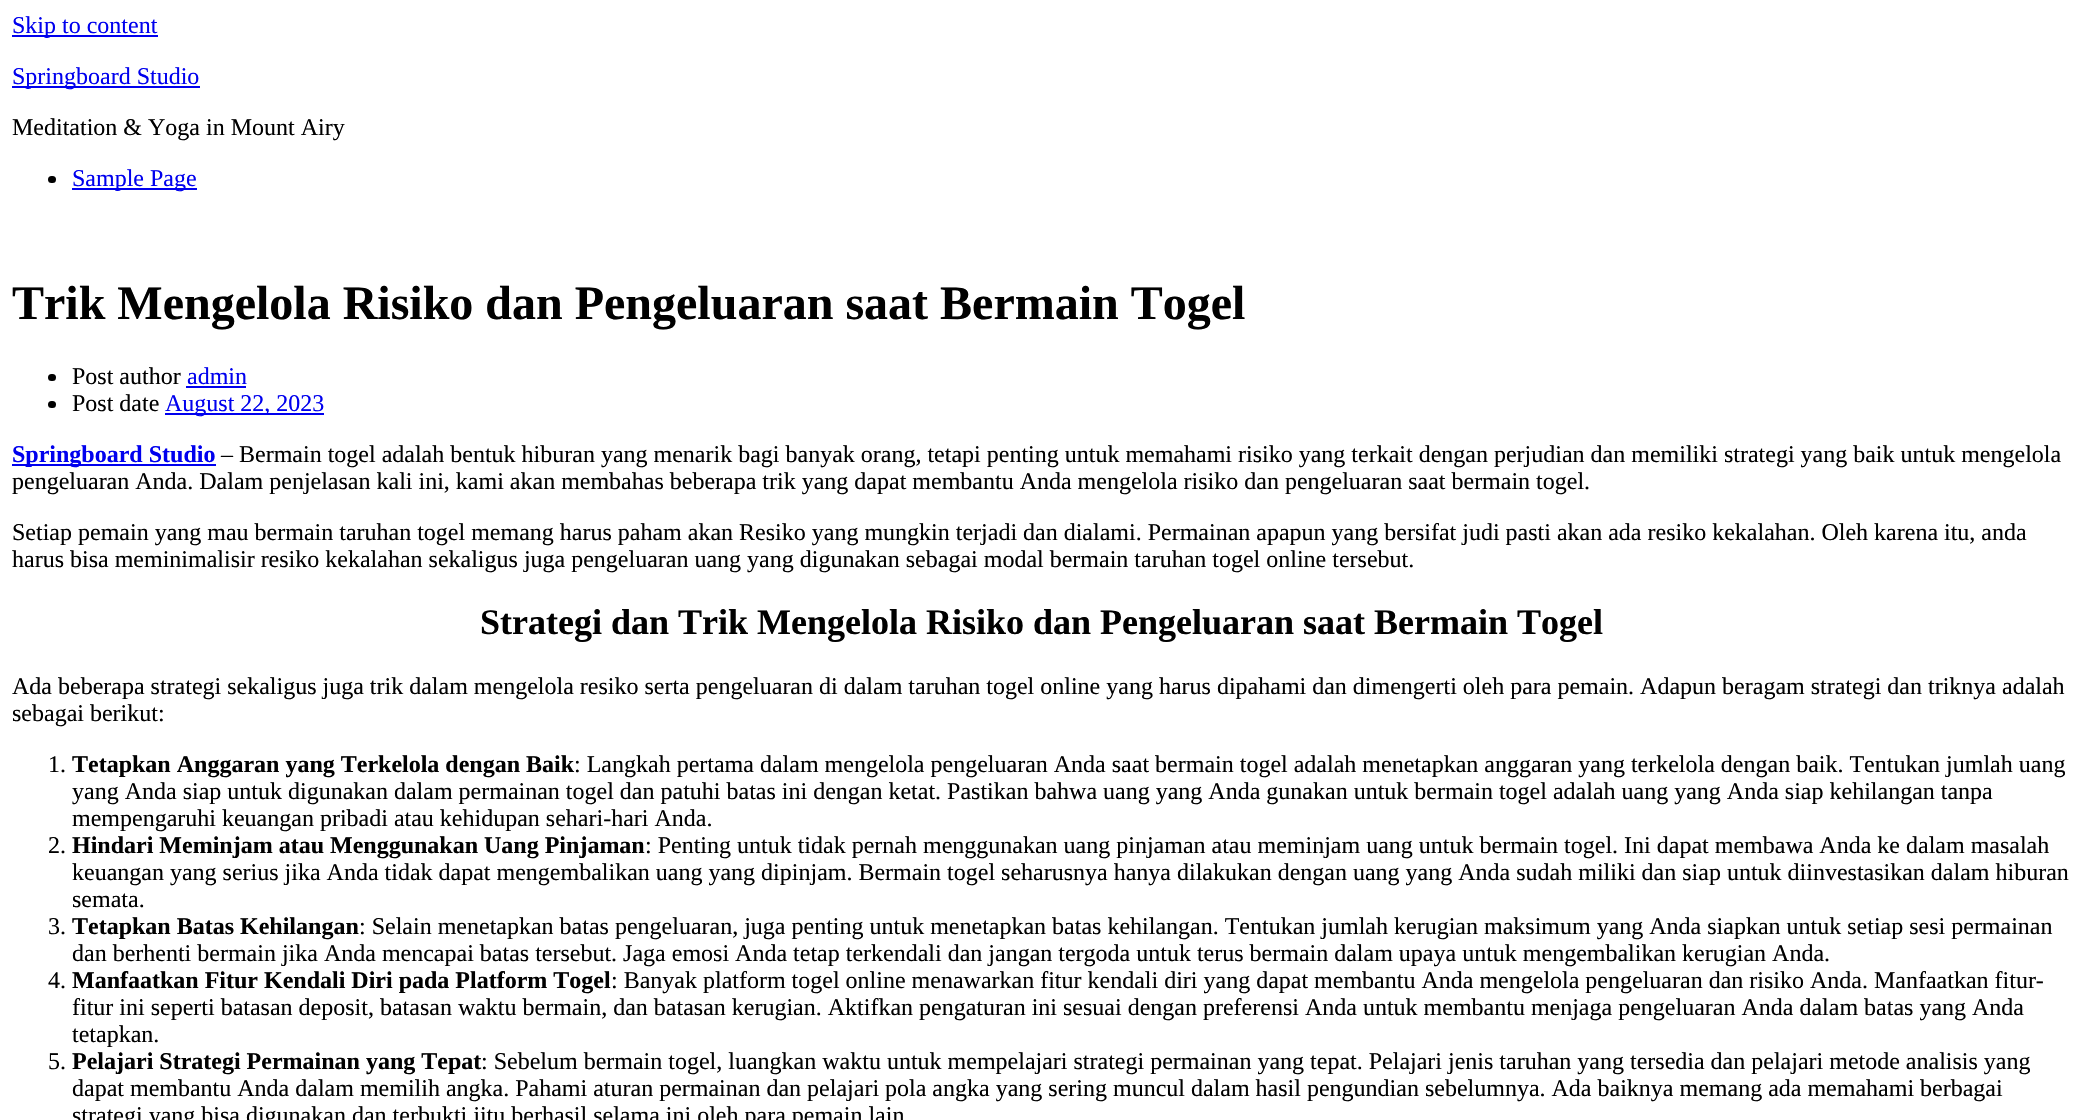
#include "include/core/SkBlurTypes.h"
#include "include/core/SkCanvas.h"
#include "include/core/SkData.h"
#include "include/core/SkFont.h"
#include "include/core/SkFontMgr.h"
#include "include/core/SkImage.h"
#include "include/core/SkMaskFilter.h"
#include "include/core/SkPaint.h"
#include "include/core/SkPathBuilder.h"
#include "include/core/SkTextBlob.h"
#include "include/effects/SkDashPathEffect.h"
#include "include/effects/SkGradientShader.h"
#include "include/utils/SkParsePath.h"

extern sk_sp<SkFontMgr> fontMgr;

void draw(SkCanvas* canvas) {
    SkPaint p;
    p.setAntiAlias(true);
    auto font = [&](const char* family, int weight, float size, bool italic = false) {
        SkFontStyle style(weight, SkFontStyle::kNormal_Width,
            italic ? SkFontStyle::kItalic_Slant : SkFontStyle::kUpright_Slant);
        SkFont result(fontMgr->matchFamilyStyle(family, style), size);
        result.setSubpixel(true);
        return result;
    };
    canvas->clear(0xFFFFFFFF);
    p.setColor(0xFF0000EE);
    canvas->drawRect(SkRect::MakeLTRB(12, 35, 158, 37), p);
    auto font1 = font("Liberation Serif", 400, 24);
    canvas->drawString("Skip to content", 12, 33, font1, p);
    canvas->drawRect(SkRect::MakeLTRB(12, 86, 200, 88), p);
    canvas->drawString("Springboard Studio", 12, 84, font1, p);
    p.setColor(0xFF000000);
    canvas->drawString("Meditation & Yoga in Mount Airy", 12, 135, font1, p);
    canvas->drawRoundRect(SkRect::MakeLTRB(48, 176, 56, 183), 3.5f, 3.5f, p);
    p.setColor(0xFF0000EE);
    canvas->drawRect(SkRect::MakeLTRB(72, 188, 197, 190), p);
    canvas->drawString("Sample Page", 72, 186, font1, p);
    auto font2 = font("Liberation Serif", 700, 48);
    p.setColor(0xFF000000);
    canvas->drawString("Trik Mengelola Risiko dan Pengeluaran saat Bermain Togel", 12, 319, font2, p);
    canvas->drawRoundRect(SkRect::MakeLTRB(48, 374, 56, 381), 3.5f, 3.5f, p);
    canvas->drawString("Post author", 72, 384, font1, p);
    p.setColor(0xFF0000EE);
    canvas->drawString("admin", 187, 384, font1, p);
    canvas->drawRect(SkRect::MakeLTRB(186, 386, 246, 388), p);
    p.setColor(0xFF000000);
    canvas->drawRoundRect(SkRect::MakeLTRB(48, 401, 56, 408), 3.5f, 3.5f, p);
    canvas->drawString("Post date", 72, 411, font1, p);
    p.setColor(0xFF0000EE);
    canvas->drawRect(SkRect::MakeLTRB(165, 413, 324, 415), p);
    canvas->drawString("August 22, 2023", 165, 411, font1, p);
    canvas->drawRect(SkRect::MakeLTRB(12, 464, 216, 466), p);
    auto font3 = font("Liberation Serif", 700, 24);
    canvas->drawString("Springboard Studio", 12, 462, font3, p);
    p.setColor(0xFF000000);
    {
        const struct { const char* s; float x, y; } items[] = {
            {"– Bermain togel adalah bentuk hiburan yang menarik bagi banyak orang, tetapi penting untuk memahami risiko yang terkait dengan perjudian dan memiliki strategi yang baik untuk mengelola", 221, 462},
            {"pengeluaran Anda. Dalam penjelasan kali ini, kami akan membahas beberapa trik yang dapat membantu Anda mengelola risiko dan pengeluaran saat bermain togel.", 12, 489},
            {"Setiap pemain yang mau bermain taruhan togel memang harus paham akan Resiko yang mungkin terjadi dan dialami. Permainan apapun yang bersifat judi pasti akan ada resiko kekalahan. Oleh karena itu, anda", 12, 540},
            {"harus bisa meminimalisir resiko kekalahan sekaligus juga pengeluaran uang yang digunakan sebagai modal bermain taruhan togel online tersebut.", 12, 567},
        };
        for (auto [s, x, y] : items) {
            canvas->drawString(s, x, y, font1, p);
        }
    }
    auto font4 = font("Liberation Serif", 700, 36);
    canvas->drawString("Strategi dan Trik Mengelola Risiko dan Pengeluaran saat Bermain Togel", 480, 634, font4, p);
    {
        const struct { const char* s; float x, y; } items[] = {
            {"Ada beberapa strategi sekaligus juga trik dalam mengelola resiko serta pengeluaran di dalam taruhan togel online yang harus dipahami dan dimengerti oleh para pemain. Adapun beragam strategi dan triknya adalah", 12, 694},
            {"sebagai berikut:", 12, 721},
            {"1.", 48, 772},
        };
        for (auto [s, x, y] : items) {
            canvas->drawString(s, x, y, font1, p);
        }
    }
    canvas->drawString("Tetapkan Anggaran yang Terkelola dengan Baik", 72, 772, font3, p);
    {
        const struct { const char* s; float x, y; } items[] = {
            {": Langkah pertama dalam mengelola pengeluaran Anda saat bermain togel adalah menetapkan anggaran yang terkelola dengan baik. Tentukan jumlah uang", 574, 772},
            {"yang Anda siap untuk digunakan dalam permainan togel dan patuhi batas ini dengan ketat. Pastikan bahwa uang yang Anda gunakan untuk bermain togel adalah uang yang Anda siap kehilangan tanpa", 72, 799},
            {"mempengaruhi keuangan pribadi atau kehidupan sehari-hari Anda.", 72, 826},
            {"2.", 48, 853},
        };
        for (auto [s, x, y] : items) {
            canvas->drawString(s, x, y, font1, p);
        }
    }
    canvas->drawString("Hindari Meminjam atau Menggunakan Uang Pinjaman", 72, 853, font3, p);
    {
        const struct { const char* s; float x, y; } items[] = {
            {": Penting untuk tidak pernah menggunakan uang pinjaman atau meminjam uang untuk bermain togel. Ini dapat membawa Anda ke dalam masalah", 645, 853},
            {"keuangan yang serius jika Anda tidak dapat mengembalikan uang yang dipinjam. Bermain togel seharusnya hanya dilakukan dengan uang yang Anda sudah miliki dan siap untuk diinvestasikan dalam hiburan", 72, 880},
            {"semata.", 72, 907},
            {"3.", 48, 934},
        };
        for (auto [s, x, y] : items) {
            canvas->drawString(s, x, y, font1, p);
        }
    }
    canvas->drawString("Tetapkan Batas Kehilangan", 72, 934, font3, p);
    {
        const struct { const char* s; float x, y; } items[] = {
            {": Selain menetapkan batas pengeluaran, juga penting untuk menetapkan batas kehilangan. Tentukan jumlah kerugian maksimum yang Anda siapkan untuk setiap sesi permainan", 359, 934},
            {"dan berhenti bermain jika Anda mencapai batas tersebut. Jaga emosi Anda tetap terkendali dan jangan tergoda untuk terus bermain dalam upaya untuk mengembalikan kerugian Anda.", 72, 961},
            {"4.", 48, 988},
        };
        for (auto [s, x, y] : items) {
            canvas->drawString(s, x, y, font1, p);
        }
    }
    canvas->drawString("Manfaatkan Fitur Kendali Diri pada Platform Togel", 72, 988, font3, p);
    {
        const struct { const char* s; float x, y; } items[] = {
            {": Banyak platform togel online menawarkan fitur kendali diri yang dapat membantu Anda mengelola pengeluaran dan risiko Anda. Manfaatkan fitur-", 611, 988},
            {"fitur ini seperti batasan deposit, batasan waktu bermain, dan batasan kerugian. Aktifkan pengaturan ini sesuai dengan preferensi Anda untuk membantu menjaga pengeluaran Anda dalam batas yang Anda", 72, 1015},
            {"tetapkan.", 72, 1042},
            {"5.", 48, 1069},
        };
        for (auto [s, x, y] : items) {
            canvas->drawString(s, x, y, font1, p);
        }
    }
    canvas->drawString("Pelajari Strategi Permainan yang Tepat", 72, 1069, font3, p);
    {
        const struct { const char* s; float x, y; } items[] = {
            {": Sebelum bermain togel, luangkan waktu untuk mempelajari strategi permainan yang tepat. Pelajari jenis taruhan yang tersedia dan pelajari metode analisis yang", 481, 1069},
            {"dapat membantu Anda dalam memilih angka. Pahami aturan permainan dan pelajari pola angka yang sering muncul dalam hasil pengundian sebelumnya. Ada baiknya memang ada memahami berbagai", 72, 1096},
            {"strategi yang bisa digunakan dan terbukti jitu berhasil selama ini oleh para pemain lain", 72, 1123},
        };
        for (auto [s, x, y] : items) {
            canvas->drawString(s, x, y, font1, p);
        }
    }
}
